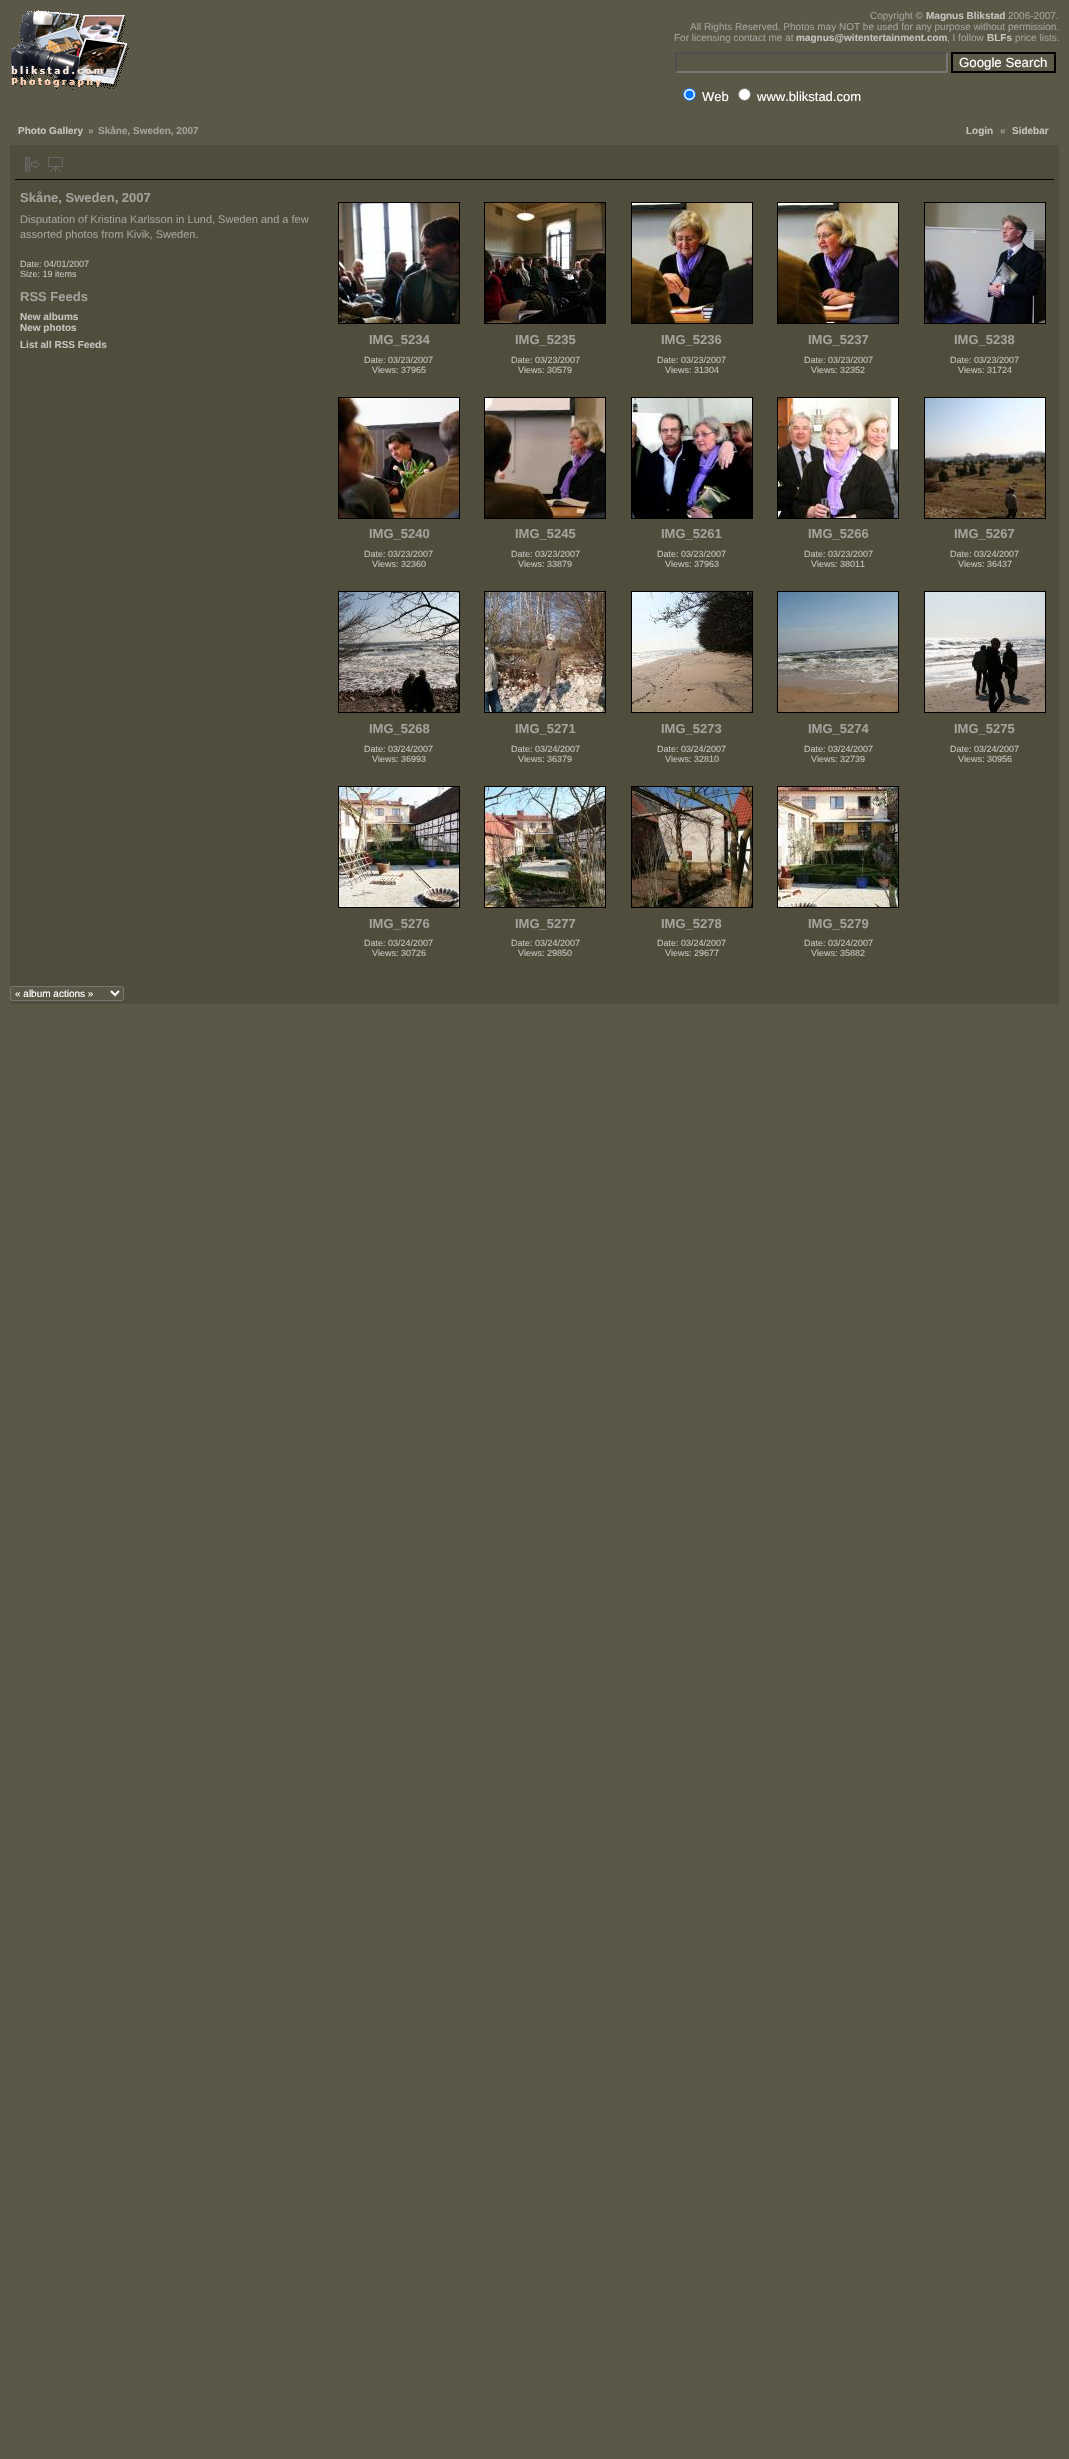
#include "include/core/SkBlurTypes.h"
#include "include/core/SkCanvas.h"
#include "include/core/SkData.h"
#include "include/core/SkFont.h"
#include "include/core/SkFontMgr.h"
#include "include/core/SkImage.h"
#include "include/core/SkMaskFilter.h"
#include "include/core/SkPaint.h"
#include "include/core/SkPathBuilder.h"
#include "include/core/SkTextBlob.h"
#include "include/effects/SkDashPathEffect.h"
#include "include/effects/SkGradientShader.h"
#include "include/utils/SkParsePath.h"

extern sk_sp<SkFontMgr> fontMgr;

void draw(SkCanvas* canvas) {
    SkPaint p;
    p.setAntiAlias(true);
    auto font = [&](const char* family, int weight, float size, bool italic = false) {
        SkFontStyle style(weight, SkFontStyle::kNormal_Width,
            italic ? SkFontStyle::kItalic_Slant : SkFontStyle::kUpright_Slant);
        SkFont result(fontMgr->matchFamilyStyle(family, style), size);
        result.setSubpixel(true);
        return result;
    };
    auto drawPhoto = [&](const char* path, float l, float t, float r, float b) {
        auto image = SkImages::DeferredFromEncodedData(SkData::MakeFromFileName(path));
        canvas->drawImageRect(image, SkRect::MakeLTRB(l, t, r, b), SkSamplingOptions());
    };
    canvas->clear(0xFF5B5848);
    drawPhoto("media/1.png", 10, 10, 129, 90);
    auto font1 = font("Liberation Sans", 400, 10);
    p.setColor(0xFFA2A19A);
    canvas->drawString("Copyright ©", 870, 19, font1, p);
    auto font2 = font("Liberation Sans", 700, 10);
    p.setColor(0xFFC3C2BB);
    canvas->drawString("Magnus Blikstad", 926, 19, font2, p);
    p.setColor(0xFFA2A19A);
    {
        const struct { const char* s; float x, y; } items[] = {
            {"2006-2007.", 1008, 19},
            {"All Rights Reserved. Photos may NOT be used for any purpose without permission.", 690, 30},
            {"For licensing contact me at", 674, 41},
        };
        for (auto [s, x, y] : items) {
            canvas->drawString(s, x, y, font1, p);
        }
    }
    p.setColor(0xFFC3C2BB);
    canvas->drawString("magnus@witentertainment.com", 796, 41, font2, p);
    p.setColor(0xFFA2A19A);
    canvas->drawString(", I follow", 947, 41, font1, p);
    p.setColor(0xFFC3C2BB);
    canvas->drawString("BLFs", 987, 41, font2, p);
    p.setColor(0xFFA2A19A);
    canvas->drawString("price lists.", 1015, 41, font1, p);
    p.setColor(0xFF4F4F4F);
    canvas->drawPath(SkPathBuilder().moveTo(675, 52).lineTo(948, 52).lineTo(946, 54).lineTo(677, 54).close().detach(), p);
    p.setColor(0xFF767676);
    canvas->drawPath(SkPathBuilder().moveTo(948, 52).lineTo(948, 73).lineTo(946, 71).lineTo(946, 54).close().detach(), p);
    canvas->drawPath(SkPathBuilder().moveTo(948, 73).lineTo(675, 73).lineTo(677, 71).lineTo(946, 71).close().detach(), p);
    p.setColor(0xFF4F4F4F);
    canvas->drawPath(SkPathBuilder().moveTo(675, 73).lineTo(675, 52).lineTo(677, 54).lineTo(677, 71).close().detach(), p);
    p.setStyle(SkPaint::kStroke_Style);
    p.setStrokeWidth(2);
    p.setColor(0xFF000000);
    canvas->drawRect(SkRect::MakeLTRB(952, 53, 1055, 72), p);
    auto font3 = font("Liberation Sans", 400, 13.25f);
    p.setStyle(SkPaint::kFill_Style);
    p.setColor(0xFFFFFFFF);
    canvas->drawString("Google Search", 959, 67, font3, p);
    canvas->drawCircle(689.5f, 94.5f, 6, p);
    p.setStyle(SkPaint::kStroke_Style);
    p.setStrokeWidth(1);
    p.setColor(0xFF0075FF);
    canvas->drawCircle(689.5f, 94.5f, 6, p);
    p.setStyle(SkPaint::kFill_Style);
    canvas->drawCircle(689.5f, 94.5f, 4, p);
    auto font4 = font("Liberation Sans", 400, 13);
    p.setColor(0xFFFFFFFF);
    canvas->drawString("Web", 702, 101, font4, p);
    canvas->drawCircle(744.5f, 94.5f, 6, p);
    p.setStyle(SkPaint::kStroke_Style);
    p.setColor(0xFF767676);
    canvas->drawCircle(744.5f, 94.5f, 6, p);
    p.setStyle(SkPaint::kFill_Style);
    p.setColor(0xFFFFFFFF);
    canvas->drawString("www.blikstad.com", 757, 101, font4, p);
    p.setColor(0xFFC3C2BB);
    canvas->drawString("Photo Gallery", 18, 134, font2, p);
    p.setColor(0xFFA2A19A);
    canvas->drawString("»", 88, 134, font2, p);
    canvas->drawString("Skåne, Sweden, 2007", 98, 134, font2, p);
    p.setColor(0xFFC3C2BB);
    canvas->drawString("Login", 966, 134, font2, p);
    p.setColor(0xFFA2A19A);
    canvas->drawString("«", 1000, 134, font2, p);
    p.setColor(0xFFC3C2BB);
    canvas->drawString("Sidebar", 1012, 134, font2, p);
    p.setColor(0xFF504D3D);
    canvas->drawRect(SkRect::MakeLTRB(10, 145, 1059, 1004), p);
    p.setColor(0xFF000000);
    canvas->drawRect(SkRect::MakeLTRB(15, 179, 1054, 180), p);
    drawPhoto("media/2.png", 25, 157, 40, 172);
    drawPhoto("media/3.png", 48, 157, 63, 172);
    auto font5 = font("Liberation Sans", 700, 13);
    p.setColor(0xFFA2A19A);
    canvas->drawString("Skåne, Sweden, 2007", 20, 202, font5, p);
    auto font6 = font("Liberation Sans", 400, 11);
    canvas->drawString("Disputation of Kristina Karlsson in Lund, Sweden and a few", 20, 223, font6, p);
    canvas->drawString("assorted photos from Kivik, Sweden.", 20, 238, font6, p);
    auto font7 = font("Liberation Sans", 400, 9);
    p.setColor(0xFFC3C2BB);
    canvas->drawString("Date: 04/01/2007", 20, 267, font7, p);
    canvas->drawString("Size: 19 items", 20, 277, font7, p);
    p.setColor(0xFFA2A19A);
    canvas->drawString("RSS Feeds", 20, 301, font5, p);
    p.setColor(0xFFC3C2BB);
    {
        const struct { const char* s; float x, y; } items[] = {
            {"New albums", 20, 320},
            {"New photos", 20, 331},
            {"List all RSS Feeds", 20, 348},
        };
        for (auto [s, x, y] : items) {
            canvas->drawString(s, x, y, font2, p);
        }
    }
    p.setStyle(SkPaint::kStroke_Style);
    p.setColor(0xFF000000);
    canvas->drawRect(SkRect::MakeLTRB(338.5f, 202.5f, 459.5f, 323.5f), p);
    drawPhoto("media/4.png", 339, 203, 459, 323);
    p.setStyle(SkPaint::kFill_Style);
    p.setColor(0xFFA2A19A);
    canvas->drawString("IMG_5234", 369, 344, font5, p);
    p.setColor(0xFFC3C2BB);
    canvas->drawString("Date: 03/23/2007", 364, 363, font7, p);
    canvas->drawString("Views: 37965", 372, 373, font7, p);
    p.setStyle(SkPaint::kStroke_Style);
    p.setColor(0xFF000000);
    canvas->drawRect(SkRect::MakeLTRB(484.5f, 202.5f, 605.5f, 323.5f), p);
    drawPhoto("media/5.png", 485, 203, 605, 323);
    p.setStyle(SkPaint::kFill_Style);
    p.setColor(0xFFA2A19A);
    canvas->drawString("IMG_5235", 515, 344, font5, p);
    p.setColor(0xFFC3C2BB);
    canvas->drawString("Date: 03/23/2007", 511, 363, font7, p);
    canvas->drawString("Views: 30579", 518, 373, font7, p);
    p.setStyle(SkPaint::kStroke_Style);
    p.setColor(0xFF000000);
    canvas->drawRect(SkRect::MakeLTRB(631.5f, 202.5f, 752.5f, 323.5f), p);
    drawPhoto("media/6.png", 632, 203, 752, 323);
    p.setStyle(SkPaint::kFill_Style);
    p.setColor(0xFFA2A19A);
    canvas->drawString("IMG_5236", 661, 344, font5, p);
    p.setColor(0xFFC3C2BB);
    canvas->drawString("Date: 03/23/2007", 657, 363, font7, p);
    canvas->drawString("Views: 31304", 665, 373, font7, p);
    p.setStyle(SkPaint::kStroke_Style);
    p.setColor(0xFF000000);
    canvas->drawRect(SkRect::MakeLTRB(777.5f, 202.5f, 898.5f, 323.5f), p);
    drawPhoto("media/7.png", 778, 203, 898, 323);
    p.setStyle(SkPaint::kFill_Style);
    p.setColor(0xFFA2A19A);
    canvas->drawString("IMG_5237", 808, 344, font5, p);
    p.setColor(0xFFC3C2BB);
    canvas->drawString("Date: 03/23/2007", 804, 363, font7, p);
    canvas->drawString("Views: 32352", 811, 373, font7, p);
    p.setStyle(SkPaint::kStroke_Style);
    p.setColor(0xFF000000);
    canvas->drawRect(SkRect::MakeLTRB(924.5f, 202.5f, 1045.5f, 323.5f), p);
    drawPhoto("media/8.png", 925, 203, 1045, 323);
    p.setStyle(SkPaint::kFill_Style);
    p.setColor(0xFFA2A19A);
    canvas->drawString("IMG_5238", 954, 344, font5, p);
    p.setColor(0xFFC3C2BB);
    canvas->drawString("Date: 03/23/2007", 950, 363, font7, p);
    canvas->drawString("Views: 31724", 958, 373, font7, p);
    p.setStyle(SkPaint::kStroke_Style);
    p.setColor(0xFF000000);
    canvas->drawRect(SkRect::MakeLTRB(338.5f, 397.5f, 459.5f, 518.5f), p);
    drawPhoto("media/9.png", 339, 398, 459, 518);
    p.setStyle(SkPaint::kFill_Style);
    p.setColor(0xFFA2A19A);
    canvas->drawString("IMG_5240", 369, 538, font5, p);
    p.setColor(0xFFC3C2BB);
    canvas->drawString("Date: 03/23/2007", 364, 557, font7, p);
    canvas->drawString("Views: 32360", 372, 567, font7, p);
    p.setStyle(SkPaint::kStroke_Style);
    p.setColor(0xFF000000);
    canvas->drawRect(SkRect::MakeLTRB(484.5f, 397.5f, 605.5f, 518.5f), p);
    drawPhoto("media/10.png", 485, 398, 605, 518);
    p.setStyle(SkPaint::kFill_Style);
    p.setColor(0xFFA2A19A);
    canvas->drawString("IMG_5245", 515, 538, font5, p);
    p.setColor(0xFFC3C2BB);
    canvas->drawString("Date: 03/23/2007", 511, 557, font7, p);
    canvas->drawString("Views: 33879", 518, 567, font7, p);
    p.setStyle(SkPaint::kStroke_Style);
    p.setColor(0xFF000000);
    canvas->drawRect(SkRect::MakeLTRB(631.5f, 397.5f, 752.5f, 518.5f), p);
    drawPhoto("media/11.png", 632, 398, 752, 518);
    p.setStyle(SkPaint::kFill_Style);
    p.setColor(0xFFA2A19A);
    canvas->drawString("IMG_5261", 661, 538, font5, p);
    p.setColor(0xFFC3C2BB);
    canvas->drawString("Date: 03/23/2007", 657, 557, font7, p);
    canvas->drawString("Views: 37963", 665, 567, font7, p);
    p.setStyle(SkPaint::kStroke_Style);
    p.setColor(0xFF000000);
    canvas->drawRect(SkRect::MakeLTRB(777.5f, 397.5f, 898.5f, 518.5f), p);
    drawPhoto("media/12.png", 778, 398, 898, 518);
    p.setStyle(SkPaint::kFill_Style);
    p.setColor(0xFFA2A19A);
    canvas->drawString("IMG_5266", 808, 538, font5, p);
    p.setColor(0xFFC3C2BB);
    canvas->drawString("Date: 03/23/2007", 804, 557, font7, p);
    canvas->drawString("Views: 38011", 811, 567, font7, p);
    p.setStyle(SkPaint::kStroke_Style);
    p.setColor(0xFF000000);
    canvas->drawRect(SkRect::MakeLTRB(924.5f, 397.5f, 1045.5f, 518.5f), p);
    drawPhoto("media/13.png", 925, 398, 1045, 518);
    p.setStyle(SkPaint::kFill_Style);
    p.setColor(0xFFA2A19A);
    canvas->drawString("IMG_5267", 954, 538, font5, p);
    p.setColor(0xFFC3C2BB);
    canvas->drawString("Date: 03/24/2007", 950, 557, font7, p);
    canvas->drawString("Views: 36437", 958, 567, font7, p);
    p.setStyle(SkPaint::kStroke_Style);
    p.setColor(0xFF000000);
    canvas->drawRect(SkRect::MakeLTRB(338.5f, 591.5f, 459.5f, 712.5f), p);
    drawPhoto("media/14.png", 339, 592, 459, 712);
    p.setStyle(SkPaint::kFill_Style);
    p.setColor(0xFFA2A19A);
    canvas->drawString("IMG_5268", 369, 733, font5, p);
    p.setColor(0xFFC3C2BB);
    canvas->drawString("Date: 03/24/2007", 364, 752, font7, p);
    canvas->drawString("Views: 36993", 372, 762, font7, p);
    p.setStyle(SkPaint::kStroke_Style);
    p.setColor(0xFF000000);
    canvas->drawRect(SkRect::MakeLTRB(484.5f, 591.5f, 605.5f, 712.5f), p);
    drawPhoto("media/15.png", 485, 592, 605, 712);
    p.setStyle(SkPaint::kFill_Style);
    p.setColor(0xFFA2A19A);
    canvas->drawString("IMG_5271", 515, 733, font5, p);
    p.setColor(0xFFC3C2BB);
    canvas->drawString("Date: 03/24/2007", 511, 752, font7, p);
    canvas->drawString("Views: 36379", 518, 762, font7, p);
    p.setStyle(SkPaint::kStroke_Style);
    p.setColor(0xFF000000);
    canvas->drawRect(SkRect::MakeLTRB(631.5f, 591.5f, 752.5f, 712.5f), p);
    drawPhoto("media/16.png", 632, 592, 752, 712);
    p.setStyle(SkPaint::kFill_Style);
    p.setColor(0xFFA2A19A);
    canvas->drawString("IMG_5273", 661, 733, font5, p);
    p.setColor(0xFFC3C2BB);
    canvas->drawString("Date: 03/24/2007", 657, 752, font7, p);
    canvas->drawString("Views: 32810", 665, 762, font7, p);
    p.setStyle(SkPaint::kStroke_Style);
    p.setColor(0xFF000000);
    canvas->drawRect(SkRect::MakeLTRB(777.5f, 591.5f, 898.5f, 712.5f), p);
    drawPhoto("media/17.png", 778, 592, 898, 712);
    p.setStyle(SkPaint::kFill_Style);
    p.setColor(0xFFA2A19A);
    canvas->drawString("IMG_5274", 808, 733, font5, p);
    p.setColor(0xFFC3C2BB);
    canvas->drawString("Date: 03/24/2007", 804, 752, font7, p);
    canvas->drawString("Views: 32739", 811, 762, font7, p);
    p.setStyle(SkPaint::kStroke_Style);
    p.setColor(0xFF000000);
    canvas->drawRect(SkRect::MakeLTRB(924.5f, 591.5f, 1045.5f, 712.5f), p);
    drawPhoto("media/18.png", 925, 592, 1045, 712);
    p.setStyle(SkPaint::kFill_Style);
    p.setColor(0xFFA2A19A);
    canvas->drawString("IMG_5275", 954, 733, font5, p);
    p.setColor(0xFFC3C2BB);
    canvas->drawString("Date: 03/24/2007", 950, 752, font7, p);
    canvas->drawString("Views: 30956", 958, 762, font7, p);
    p.setStyle(SkPaint::kStroke_Style);
    p.setColor(0xFF000000);
    canvas->drawRect(SkRect::MakeLTRB(338.5f, 786.5f, 459.5f, 907.5f), p);
    drawPhoto("media/19.png", 339, 787, 459, 907);
    p.setStyle(SkPaint::kFill_Style);
    p.setColor(0xFFA2A19A);
    canvas->drawString("IMG_5276", 369, 928, font5, p);
    p.setColor(0xFFC3C2BB);
    canvas->drawString("Date: 03/24/2007", 364, 946, font7, p);
    canvas->drawString("Views: 30726", 372, 956, font7, p);
    p.setStyle(SkPaint::kStroke_Style);
    p.setColor(0xFF000000);
    canvas->drawRect(SkRect::MakeLTRB(484.5f, 786.5f, 605.5f, 907.5f), p);
    drawPhoto("media/20.png", 485, 787, 605, 907);
    p.setStyle(SkPaint::kFill_Style);
    p.setColor(0xFFA2A19A);
    canvas->drawString("IMG_5277", 515, 928, font5, p);
    p.setColor(0xFFC3C2BB);
    canvas->drawString("Date: 03/24/2007", 511, 946, font7, p);
    canvas->drawString("Views: 29850", 518, 956, font7, p);
    p.setStyle(SkPaint::kStroke_Style);
    p.setColor(0xFF000000);
    canvas->drawRect(SkRect::MakeLTRB(631.5f, 786.5f, 752.5f, 907.5f), p);
    drawPhoto("media/21.png", 632, 787, 752, 907);
    p.setStyle(SkPaint::kFill_Style);
    p.setColor(0xFFA2A19A);
    canvas->drawString("IMG_5278", 661, 928, font5, p);
    p.setColor(0xFFC3C2BB);
    canvas->drawString("Date: 03/24/2007", 657, 946, font7, p);
    canvas->drawString("Views: 29677", 665, 956, font7, p);
    p.setStyle(SkPaint::kStroke_Style);
    p.setColor(0xFF000000);
    canvas->drawRect(SkRect::MakeLTRB(777.5f, 786.5f, 898.5f, 907.5f), p);
    drawPhoto("media/22.png", 778, 787, 898, 907);
    p.setStyle(SkPaint::kFill_Style);
    p.setColor(0xFFA2A19A);
    canvas->drawString("IMG_5279", 808, 928, font5, p);
    p.setColor(0xFFC3C2BB);
    canvas->drawString("Date: 03/24/2007", 804, 946, font7, p);
    canvas->drawString("Views: 35882", 811, 956, font7, p);
    p.setColor(0xFF5B5848);
    canvas->drawRoundRect(SkRect::MakeLTRB(10.5f, 986.5f, 123.5f, 1000.5f), 1.5f, 1.5f, p);
    p.setStyle(SkPaint::kStroke_Style);
    p.setColor(0xFF767676);
    canvas->drawRoundRect(SkRect::MakeLTRB(10.5f, 986.5f, 123.5f, 1000.5f), 1.5f, 1.5f, p);
    p.setStrokeWidth(2);
    p.setColor(0xFFFFFFFF);
    canvas->drawPath(SkPathBuilder().moveTo(111, 991).lineTo(115, 995).lineTo(119, 991).detach(), p);
    p.setStyle(SkPaint::kFill_Style);
    canvas->drawString("« album actions »", 15, 997, font1, p);
}
